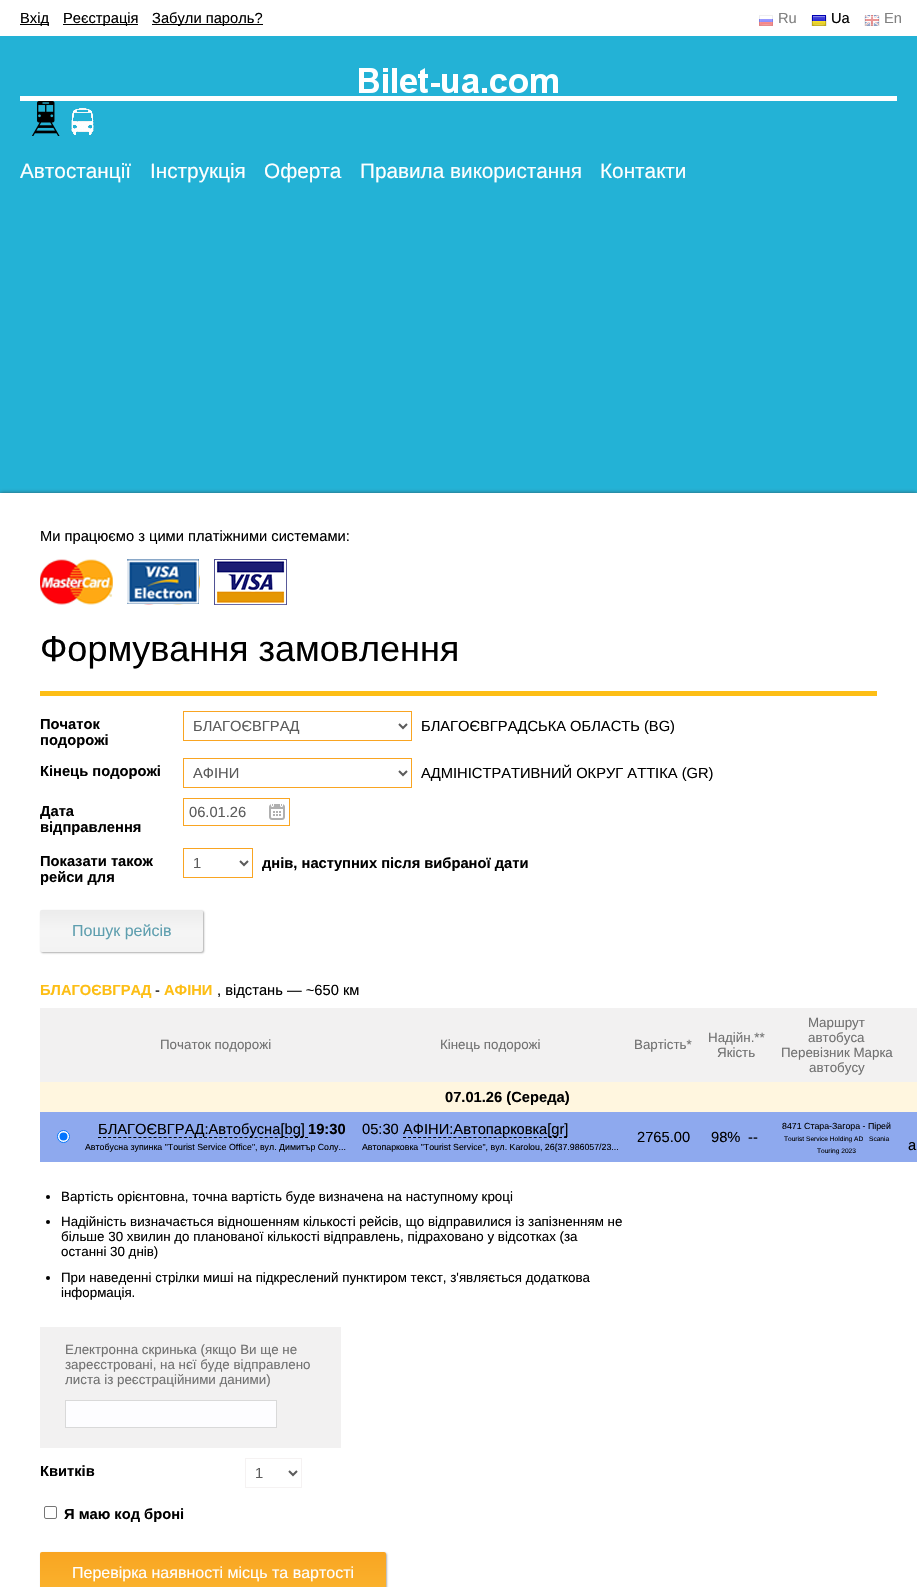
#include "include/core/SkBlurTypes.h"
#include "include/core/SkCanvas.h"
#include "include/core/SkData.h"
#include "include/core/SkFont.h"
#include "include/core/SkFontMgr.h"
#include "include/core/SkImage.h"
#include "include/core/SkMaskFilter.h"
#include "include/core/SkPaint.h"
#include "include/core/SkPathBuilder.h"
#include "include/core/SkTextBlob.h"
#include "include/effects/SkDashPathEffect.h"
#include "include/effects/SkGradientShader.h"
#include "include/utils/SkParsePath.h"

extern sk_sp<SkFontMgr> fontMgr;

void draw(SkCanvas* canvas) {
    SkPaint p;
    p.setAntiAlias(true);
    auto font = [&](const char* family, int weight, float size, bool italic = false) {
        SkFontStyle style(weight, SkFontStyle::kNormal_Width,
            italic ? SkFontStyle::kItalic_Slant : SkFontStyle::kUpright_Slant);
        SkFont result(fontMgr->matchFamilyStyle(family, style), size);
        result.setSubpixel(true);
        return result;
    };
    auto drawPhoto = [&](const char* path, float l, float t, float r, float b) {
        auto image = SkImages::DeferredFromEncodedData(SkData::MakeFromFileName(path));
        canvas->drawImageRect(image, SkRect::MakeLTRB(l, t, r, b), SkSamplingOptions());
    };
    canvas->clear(0xFFFFFFFF);
    p.setColor(0xFF000000);
    canvas->drawRect(SkRect::MakeLTRB(20, 24, 49, 25), p);
    auto font1 = font("Liberation Sans", 400, 14.7f);
    canvas->drawString("Вхід", 20, 23, font1, p);
    canvas->drawRect(SkRect::MakeLTRB(63, 24, 138, 25), p);
    canvas->drawString("Реєстрація", 63, 23, font1, p);
    canvas->drawRect(SkRect::MakeLTRB(152, 24, 263, 25), p);
    canvas->drawString("Забули пароль?", 152, 23, font1, p);
    drawPhoto("media/1.png", 759, 15, 773, 26);
    p.setColor(0xFF808080);
    canvas->drawString("Ru", 778, 23, font1, p);
    drawPhoto("media/2.png", 811, 15, 827, 26);
    p.setColor(0xFF000000);
    canvas->drawString("Ua", 831, 23, font1, p);
    drawPhoto("media/3.png", 864, 15, 880, 26);
    p.setColor(0xFF808080);
    canvas->drawString("En", 884, 23, font1, p);
    p.setColor(0xFF23B2D6);
    canvas->drawRect(SkRect::MakeLTRB(0, 36, 917, 493), p);
    drawPhoto("media/4.png", 359, 68, 558, 93);
    p.setColor(0xFFFFFFFF);
    canvas->drawRect(SkRect::MakeLTRB(20, 96, 897, 101), p);
    drawPhoto("media/5.png", 31, 101, 60, 136);
    drawPhoto("media/6.png", 71, 108, 94, 135);
    auto font2 = font("Liberation Sans", 400, 20.75f);
    {
        const struct { const char* s; float x, y; } items[] = {
            {"Автостанції", 20, 178},
            {"Інструкція", 150, 178},
            {"Оферта", 264, 178},
            {"Правила використання", 360, 178},
            {"Контакти", 600, 178},
        };
        for (auto [s, x, y] : items) {
            canvas->drawString(s, x, y, font2, p);
        }
    }
    p.setColor(0xB3323232);
    p.setMaskFilter(SkMaskFilter::MakeBlur(kNormal_SkBlurStyle, 2));
    canvas->drawRect(SkRect::MakeLTRB(0, 493, 917, 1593), p);
    p.setMaskFilter(nullptr);
    p.setColor(0xFFFFFFFF);
    canvas->drawRect(SkRect::MakeLTRB(0, 493, 917, 1587), p);
    p.setColor(0xFF000000);
    canvas->drawString("Ми працюємо з цими платіжними системами:", 40, 541, font1, p);
    drawPhoto("media/7.png", 40, 559, 113, 605);
    drawPhoto("media/8.png", 127, 559, 200, 605);
    drawPhoto("media/9.png", 214, 559, 287, 605);
    auto font3 = font("Liberation Sans", 400, 36);
    canvas->drawString("Формування замовлення", 40, 661, font3, p);
    p.setColor(0xFFFDBE15);
    canvas->drawRect(SkRect::MakeLTRB(40, 691, 877, 696), p);
    auto font4 = font("Liberation Sans", 700, 14.7f);
    p.setColor(0xFF000000);
    canvas->drawString("Початок", 40, 729, font4, p);
    canvas->drawString("подорожі", 40, 745, font4, p);
    p.setStyle(SkPaint::kStroke_Style);
    p.setStrokeWidth(1);
    p.setColor(0xFFF9A522);
    canvas->drawRect(SkRect::MakeLTRB(183.5f, 711.5f, 411.5f, 740.5f), p);
    p.setStrokeWidth(2);
    p.setColor(0xFF5B5B5B);
    canvas->drawPath(SkPathBuilder().moveTo(399, 724).lineTo(403, 728).lineTo(407, 724).detach(), p);
    p.setStyle(SkPaint::kFill_Style);
    canvas->drawString("БЛАГОЄВГРАД", 193, 731, font1, p);
    p.setColor(0xFF000000);
    canvas->drawString("БЛАГОЄВГРАДСЬКА ОБЛАСТЬ (BG)", 421, 731, font1, p);
    canvas->drawString("Кінець подорожі", 40, 776, font4, p);
    p.setStyle(SkPaint::kStroke_Style);
    p.setStrokeWidth(1);
    p.setColor(0xFFF9A522);
    canvas->drawRect(SkRect::MakeLTRB(183.5f, 758.5f, 411.5f, 787.5f), p);
    p.setStrokeWidth(2);
    p.setColor(0xFF5B5B5B);
    canvas->drawPath(SkPathBuilder().moveTo(399, 771).lineTo(403, 775).lineTo(407, 771).detach(), p);
    p.setStyle(SkPaint::kFill_Style);
    canvas->drawString("АФІНИ", 193, 778, font1, p);
    p.setColor(0xFF000000);
    canvas->drawString("АДМІНІСТРАТИВНИЙ ОКРУГ АТТІКА (GR)", 421, 778, font1, p);
    canvas->drawString("Дата", 40, 816, font4, p);
    canvas->drawString("відправлення", 40, 832, font4, p);
    drawPhoto("media/10.png", 269, 804, 285, 820);
    p.setStyle(SkPaint::kStroke_Style);
    p.setStrokeWidth(1);
    p.setColor(0xFFF9A522);
    canvas->drawRect(SkRect::MakeLTRB(183.5f, 798.5f, 289.5f, 825.5f), p);
    p.setStyle(SkPaint::kFill_Style);
    p.setColor(0xFF5B5B5B);
    canvas->drawString("06.01.26", 189, 817, font1, p);
    p.setColor(0xFF000000);
    canvas->drawString("Показати також", 40, 866, font4, p);
    canvas->drawString("рейси для", 40, 882, font4, p);
    p.setStyle(SkPaint::kStroke_Style);
    p.setColor(0xFFF9A522);
    canvas->drawRect(SkRect::MakeLTRB(183.5f, 848.5f, 252.5f, 877.5f), p);
    p.setStrokeWidth(2);
    p.setColor(0xFF5B5B5B);
    canvas->drawPath(SkPathBuilder().moveTo(240, 861).lineTo(244, 865).lineTo(248, 861).detach(), p);
    p.setStyle(SkPaint::kFill_Style);
    canvas->drawString("1", 193, 868, font1, p);
    p.setColor(0xFF000000);
    canvas->drawString("днів, наступних після вибраної дати", 262, 868, font4, p);
    p.setColor(0x66323232);
    p.setMaskFilter(SkMaskFilter::MakeBlur(kNormal_SkBlurStyle, 1));
    canvas->drawRoundRect(SkRect::MakeLTRB(41, 911, 204, 953), 2, 2, p);
    p.setMaskFilter(nullptr);
    {
        const SkColor colors[] = {0xFFECECEC, 0xFFF5F5F5, 0xFFF3F3F3};
        const float stops[] = {0, 0.51f, 1};
        const SkPoint ends[] = {{122, 910}, {122, 952}};
        p.setShader(SkGradientShader::MakeLinear(ends, colors, stops, 3, SkTileMode::kClamp));
        p.setAlpha(255);
    }
    canvas->drawRoundRect(SkRect::MakeLTRB(40, 910, 203, 952), 2, 2, p);
    auto font5 = font("Liberation Sans", 400, 16);
    p.setShader(nullptr);
    p.setColor(0xFF5F9FAF);
    canvas->drawString("Пошук рейсів", 72, 936, font5, p);
    p.setColor(0xFFFDBE15);
    canvas->drawString("БЛАГОЄВГРАД", 40, 995, font4, p);
    p.setColor(0xFF000000);
    canvas->drawString("-", 155, 995, font1, p);
    p.setColor(0xFFFDBE15);
    canvas->drawString("АФІНИ", 164, 995, font4, p);
    p.setColor(0xFF000000);
    canvas->drawString(", відстань — ~650 км", 217, 995, font1, p);
    p.setColor(0xFFF2F1F1);
    canvas->drawRect(SkRect::MakeLTRB(40, 1008, 917, 1082), p);
    auto font6 = font("Liberation Sans", 400, 13.35f);
    p.setColor(0xFF717171);
    {
        const struct { const char* s; float x, y; } items[] = {
            {"Початок подорожі", 160, 1049},
            {"Кінець подорожі", 440, 1049},
            {"Вартість*", 634, 1049},
            {"Надійн.**", 708, 1042},
            {"Якість", 717, 1057},
            {"Маршрут", 808, 1027},
            {"автобуса", 808, 1042},
            {"Перевізник Марка", 781, 1057},
            {"автобусу", 809, 1072},
        };
        for (auto [s, x, y] : items) {
            canvas->drawString(s, x, y, font6, p);
        }
    }
    p.setColor(0xFFFFF6DF);
    canvas->drawRect(SkRect::MakeLTRB(40, 1082, 917, 1112), p);
    p.setColor(0xFF000000);
    canvas->drawString("07.01.26 (Середа)", 445, 1102, font4, p);
    p.setColor(0xFF8EA9EE);
    canvas->drawRect(SkRect::MakeLTRB(40, 1112, 917, 1162), p);
    p.setColor(0xFFFFFFFF);
    canvas->drawCircle(63.5f, 1136.5f, 6, p);
    p.setStyle(SkPaint::kStroke_Style);
    p.setStrokeWidth(1);
    p.setColor(0xFF0075FF);
    canvas->drawCircle(63.5f, 1136.5f, 6, p);
    p.setStyle(SkPaint::kFill_Style);
    canvas->drawCircle(63.5f, 1136.5f, 4, p);
    p.setStyle(SkPaint::kStroke_Style);
    p.setColor(0xFF000000);
    p.setPathEffect(SkDashPathEffect::Make({{3, 2.05f}}, 0));
    canvas->drawPath(SkPathBuilder().moveTo(98, 1137.5f).lineTo(308, 1137.5f).detach(), p);
    p.setPathEffect(nullptr);
    p.setStyle(SkPaint::kFill_Style);
    canvas->drawString("БЛАГОЄВГРАД:Автобусна[bg]", 98, 1134, font1, p);
    canvas->drawString("19:30", 308, 1134, font4, p);
    auto font7 = font("Liberation Sans", 400, 8.8f);
    canvas->drawString("Автобусна зупинка \"Tourist Service Office\", вул. Димитър Солу...", 85, 1150, font7, p);
    canvas->drawString("05:30", 362, 1134, font1, p);
    p.setStyle(SkPaint::kStroke_Style);
    p.setPathEffect(SkDashPathEffect::Make({{3, 2.03f}}, 0));
    canvas->drawPath(SkPathBuilder().moveTo(403, 1137.5f).lineTo(567, 1137.5f).detach(), p);
    p.setPathEffect(nullptr);
    p.setStyle(SkPaint::kFill_Style);
    canvas->drawString("АФІНИ:Автопарковка[gr]", 403, 1134, font1, p);
    canvas->drawString("Автопарковка \"Tourist Service\", вул. Karolou, 26{37.986057/23...", 362, 1150, font7, p);
    {
        const struct { const char* s; float x, y; } items[] = {
            {"2765.00", 637, 1142},
            {"98%", 711, 1142},
            {"--", 748, 1142},
        };
        for (auto [s, x, y] : items) {
            canvas->drawString(s, x, y, font1, p);
        }
    }
    canvas->drawString("8471 Стара-Загора - Пірей", 782, 1129, font7, p);
    auto font8 = font("Liberation Sans", 400, 6.6f);
    {
        const struct { const char* s; float x, y; } items[] = {
            {"Tourist Service Holding AD", 784, 1141},
            {"Scania", 869, 1141},
            {"Touring 2023", 817, 1153},
        };
        for (auto [s, x, y] : items) {
            canvas->drawString(s, x, y, font8, p);
        }
    }
    canvas->drawString("а", 908, 1150, font1, p);
    canvas->drawCircle(48, 1197, 2, p);
    canvas->drawString("Вартість орієнтовна, точна вартість буде визначена на наступному кроці", 61, 1201, font6, p);
    canvas->drawCircle(48, 1222, 2, p);
    {
        const struct { const char* s; float x, y; } items[] = {
            {"Надійність визначається відношенням кількості рейсів, що відправилися із запізненням не", 61, 1226},
            {"більше 30 хвилин до планованої кількості відправлень, підраховано у відсотках (за", 61, 1241},
            {"останні 30 днів)", 61, 1256},
        };
        for (auto [s, x, y] : items) {
            canvas->drawString(s, x, y, font6, p);
        }
    }
    canvas->drawCircle(48, 1278, 2, p);
    canvas->drawString("При наведенні стрілки миші на підкреслений пунктиром текст, з'являється додаткова", 61, 1282, font6, p);
    canvas->drawString("інформація.", 61, 1297, font6, p);
    p.setColor(0xFFF2F1F1);
    canvas->drawRect(SkRect::MakeLTRB(40, 1327, 341, 1448), p);
    p.setColor(0xFF717171);
    {
        const struct { const char* s; float x, y; } items[] = {
            {"Електронна скринька (якщо Ви ще не", 65, 1354},
            {"зареєстровані, на нєї буде відправлено", 65, 1369},
            {"листа із реєстраційними даними)", 65, 1384},
        };
        for (auto [s, x, y] : items) {
            canvas->drawString(s, x, y, font6, p);
        }
    }
    p.setColor(0xFFFDFDFF);
    canvas->drawRect(SkRect::MakeLTRB(65.5f, 1400.5f, 276.5f, 1427.5f), p);
    p.setStyle(SkPaint::kStroke_Style);
    p.setColor(0xFFD9D9D9);
    canvas->drawRect(SkRect::MakeLTRB(65.5f, 1400.5f, 276.5f, 1427.5f), p);
    p.setStyle(SkPaint::kFill_Style);
    p.setColor(0xFF000000);
    canvas->drawString("Квитків", 40, 1476, font4, p);
    p.setStyle(SkPaint::kStroke_Style);
    p.setColor(0xFFF5F2F2);
    canvas->drawRect(SkRect::MakeLTRB(245.5f, 1458.5f, 301.5f, 1487.5f), p);
    p.setStrokeWidth(2);
    p.setColor(0xFF5B5B5B);
    canvas->drawPath(SkPathBuilder().moveTo(289, 1471).lineTo(293, 1475).lineTo(297, 1471).detach(), p);
    p.setStyle(SkPaint::kFill_Style);
    canvas->drawString("1", 255, 1478, font1, p);
    p.setStyle(SkPaint::kStroke_Style);
    p.setStrokeWidth(1);
    p.setColor(0xFF767676);
    canvas->drawRoundRect(SkRect::MakeLTRB(44.5f, 1506.5f, 56.5f, 1518.5f), 1.5f, 1.5f, p);
    p.setStyle(SkPaint::kFill_Style);
    p.setColor(0xFF000000);
    canvas->drawString("Я маю код броні", 64, 1519, font4, p);
    p.setColor(0x66323232);
    p.setMaskFilter(SkMaskFilter::MakeBlur(kNormal_SkBlurStyle, 1));
    canvas->drawRoundRect(SkRect::MakeLTRB(41, 1553, 387, 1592), 2, 2, p);
    p.setMaskFilter(nullptr);
    {
        const SkColor colors[] = {0xFFF9A522, 0xFFFAB32E};
        const float stops[] = {0, 1};
        const SkPoint ends[] = {{213, 1552}, {213, 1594}};
        p.setShader(SkGradientShader::MakeLinear(ends, colors, stops, 2, SkTileMode::kClamp));
        p.setAlpha(255);
    }
    canvas->drawRoundRect(SkRect::MakeLTRB(40, 1552, 386, 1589), 2, 2, p);
    p.setShader(nullptr);
    p.setColor(0xFFFFFFFF);
    canvas->drawString("Перевірка наявності місць та вартості", 72, 1578, font5, p);
}
